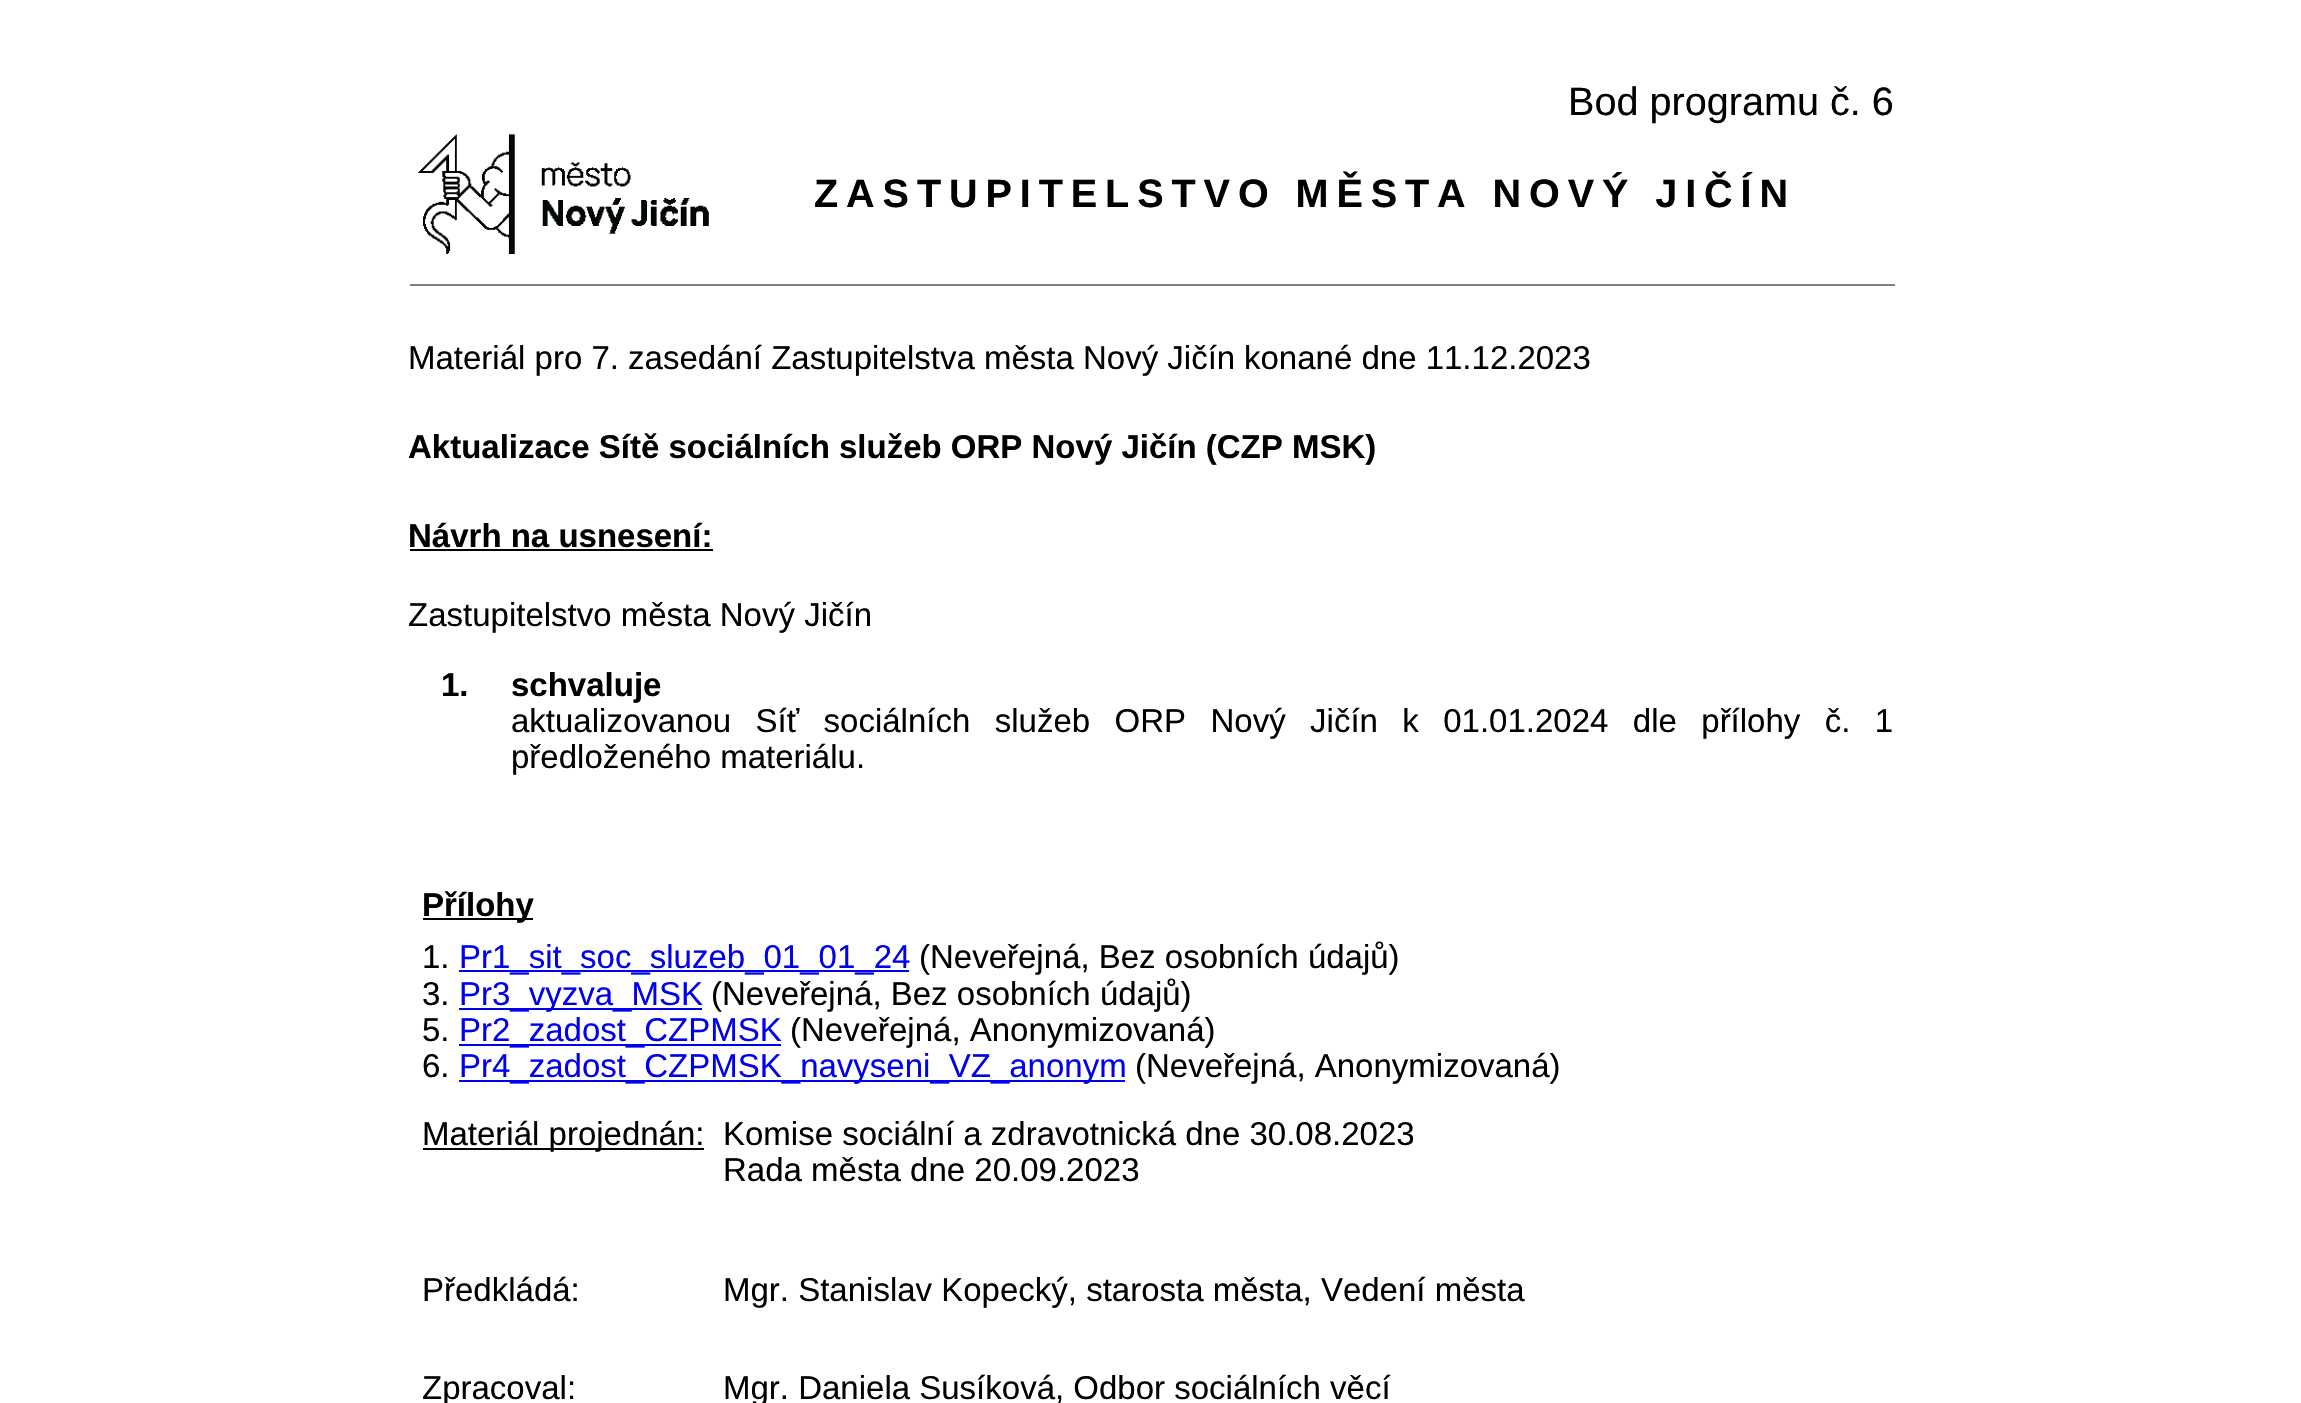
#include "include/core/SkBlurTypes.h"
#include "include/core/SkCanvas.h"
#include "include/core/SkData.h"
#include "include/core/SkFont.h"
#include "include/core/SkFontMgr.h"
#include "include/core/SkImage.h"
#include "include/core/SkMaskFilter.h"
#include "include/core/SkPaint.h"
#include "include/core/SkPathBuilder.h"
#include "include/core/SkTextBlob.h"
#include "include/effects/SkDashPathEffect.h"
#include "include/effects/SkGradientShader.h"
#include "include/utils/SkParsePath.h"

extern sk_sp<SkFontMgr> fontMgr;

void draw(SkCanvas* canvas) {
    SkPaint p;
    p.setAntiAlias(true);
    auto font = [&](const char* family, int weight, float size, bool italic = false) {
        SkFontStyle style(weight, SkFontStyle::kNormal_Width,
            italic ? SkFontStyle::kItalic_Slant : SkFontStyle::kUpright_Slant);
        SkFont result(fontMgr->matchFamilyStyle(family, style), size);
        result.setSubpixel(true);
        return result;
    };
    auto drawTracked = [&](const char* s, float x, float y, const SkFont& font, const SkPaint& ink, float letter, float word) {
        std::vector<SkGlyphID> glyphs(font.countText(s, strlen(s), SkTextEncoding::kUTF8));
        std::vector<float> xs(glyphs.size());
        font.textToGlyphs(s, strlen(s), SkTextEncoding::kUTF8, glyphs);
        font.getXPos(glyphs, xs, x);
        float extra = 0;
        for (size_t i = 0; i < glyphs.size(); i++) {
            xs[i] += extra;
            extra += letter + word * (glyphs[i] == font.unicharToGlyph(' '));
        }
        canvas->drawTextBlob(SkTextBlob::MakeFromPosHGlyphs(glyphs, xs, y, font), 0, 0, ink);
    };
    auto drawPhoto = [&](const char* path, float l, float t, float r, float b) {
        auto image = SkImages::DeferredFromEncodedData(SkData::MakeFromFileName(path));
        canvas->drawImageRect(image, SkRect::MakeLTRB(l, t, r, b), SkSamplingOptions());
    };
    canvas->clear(0xFFFFFFFF);
    auto font1 = font("Liberation Sans", 400, 39.6f);
    p.setColor(0xFF000000);
    canvas->drawString("Bod programu č. 6", 1568, 115, font1, p);
    drawPhoto("media/1.png", 418, 134, 709, 254);
    auto font2 = font("Liberation Sans", 700, 39.6f);
    drawTracked("ZASTUPITELSTVO MĚSTA NOVÝ JIČÍN", 814, 207, font2, p, 7.9f, 0);
    p.setColor(0xFF808080);
    canvas->drawRect(SkRect::MakeLTRB(410, 284, 1895, 286), p);
    auto font3 = font("Liberation Sans", 400, 33);
    p.setColor(0xFF000000);
    canvas->drawString("Materiál pro 7. zasedání Zastupitelstva města Nový Jičín", 408, 369, font3, p);
    canvas->drawString("konané dne 11.12.2023", 1244, 369, font3, p);
    auto font4 = font("Liberation Sans", 700, 33);
    canvas->drawString("Aktualizace Sítě sociálních služeb ORP Nový Jičín (CZP MSK)", 408, 458, font4, p);
    canvas->drawString("Návrh na usnesení:", 408, 547, font4, p);
    canvas->drawRect(SkRect::MakeLTRB(410, 549, 713, 551), p);
    canvas->drawString("Zastupitelstvo města Nový Jičín", 408, 626, font3, p);
    canvas->drawString("1.", 441, 696, font4, p);
    canvas->drawString("schvaluje", 511, 696, font4, p);
    drawTracked("aktualizovanou Síť sociálních služeb ORP Nový Jičín k 01.01.2024 dle přílohy č. 1", 511, 732, font3, p, 0, 15.25f);
    canvas->drawString("předloženého materiálu.", 511, 768, font3, p);
    canvas->drawRect(SkRect::MakeLTRB(423, 918, 533, 920), p);
    canvas->drawString("Přílohy", 422, 916, font4, p);
    canvas->drawString("1.", 422, 968, font3, p);
    p.setColor(0xFF0000EE);
    canvas->drawRect(SkRect::MakeLTRB(459, 970, 909, 972), p);
    canvas->drawString("Pr1_sit_soc_sluzeb_01_01_24", 459, 968, font3, p);
    p.setColor(0xFF000000);
    canvas->drawString("(Neveřejná, Bez osobních údajů)", 919, 968, font3, p);
    canvas->drawString("3.", 422, 1005, font3, p);
    p.setColor(0xFF0000EE);
    canvas->drawRect(SkRect::MakeLTRB(459, 1008, 702, 1010), p);
    canvas->drawString("Pr3_vyzva_MSK", 459, 1005, font3, p);
    p.setColor(0xFF000000);
    canvas->drawString("(Neveřejná, Bez osobních údajů)", 711, 1005, font3, p);
    canvas->drawString("5.", 422, 1041, font3, p);
    p.setColor(0xFF0000EE);
    canvas->drawRect(SkRect::MakeLTRB(459, 1044, 781, 1046), p);
    canvas->drawString("Pr2_zadost_CZPMSK", 459, 1041, font3, p);
    p.setColor(0xFF000000);
    canvas->drawString("(Neveřejná, Anonymizovaná)", 790, 1041, font3, p);
    canvas->drawString("6.", 422, 1077, font3, p);
    p.setColor(0xFF0000EE);
    canvas->drawRect(SkRect::MakeLTRB(459, 1080, 1125, 1082), p);
    canvas->drawString("Pr4_zadost_CZPMSK_navyseni_VZ_anonym", 459, 1077, font3, p);
    p.setColor(0xFF000000);
    canvas->drawString("(Neveřejná, Anonymizovaná)", 1135, 1077, font3, p);
    canvas->drawRect(SkRect::MakeLTRB(423, 1148, 704, 1150), p);
    {
        const struct { const char* s; float x, y; } items[] = {
            {"Materiál projednán:", 422, 1145},
            {"Komise sociální a zdravotnická dne 30.08.2023", 723, 1145},
            {"Rada města dne 20.09.2023", 723, 1181},
            {"Předkládá:", 422, 1301},
            {"Mgr. Stanislav Kopecký, starosta města, Vedení města", 723, 1301},
            {"Zpracoval:", 422, 1399},
            {"Mgr. Daniela Susíková, Odbor sociálních věcí", 723, 1399},
        };
        for (auto [s, x, y] : items) {
            canvas->drawString(s, x, y, font3, p);
        }
    }
}
